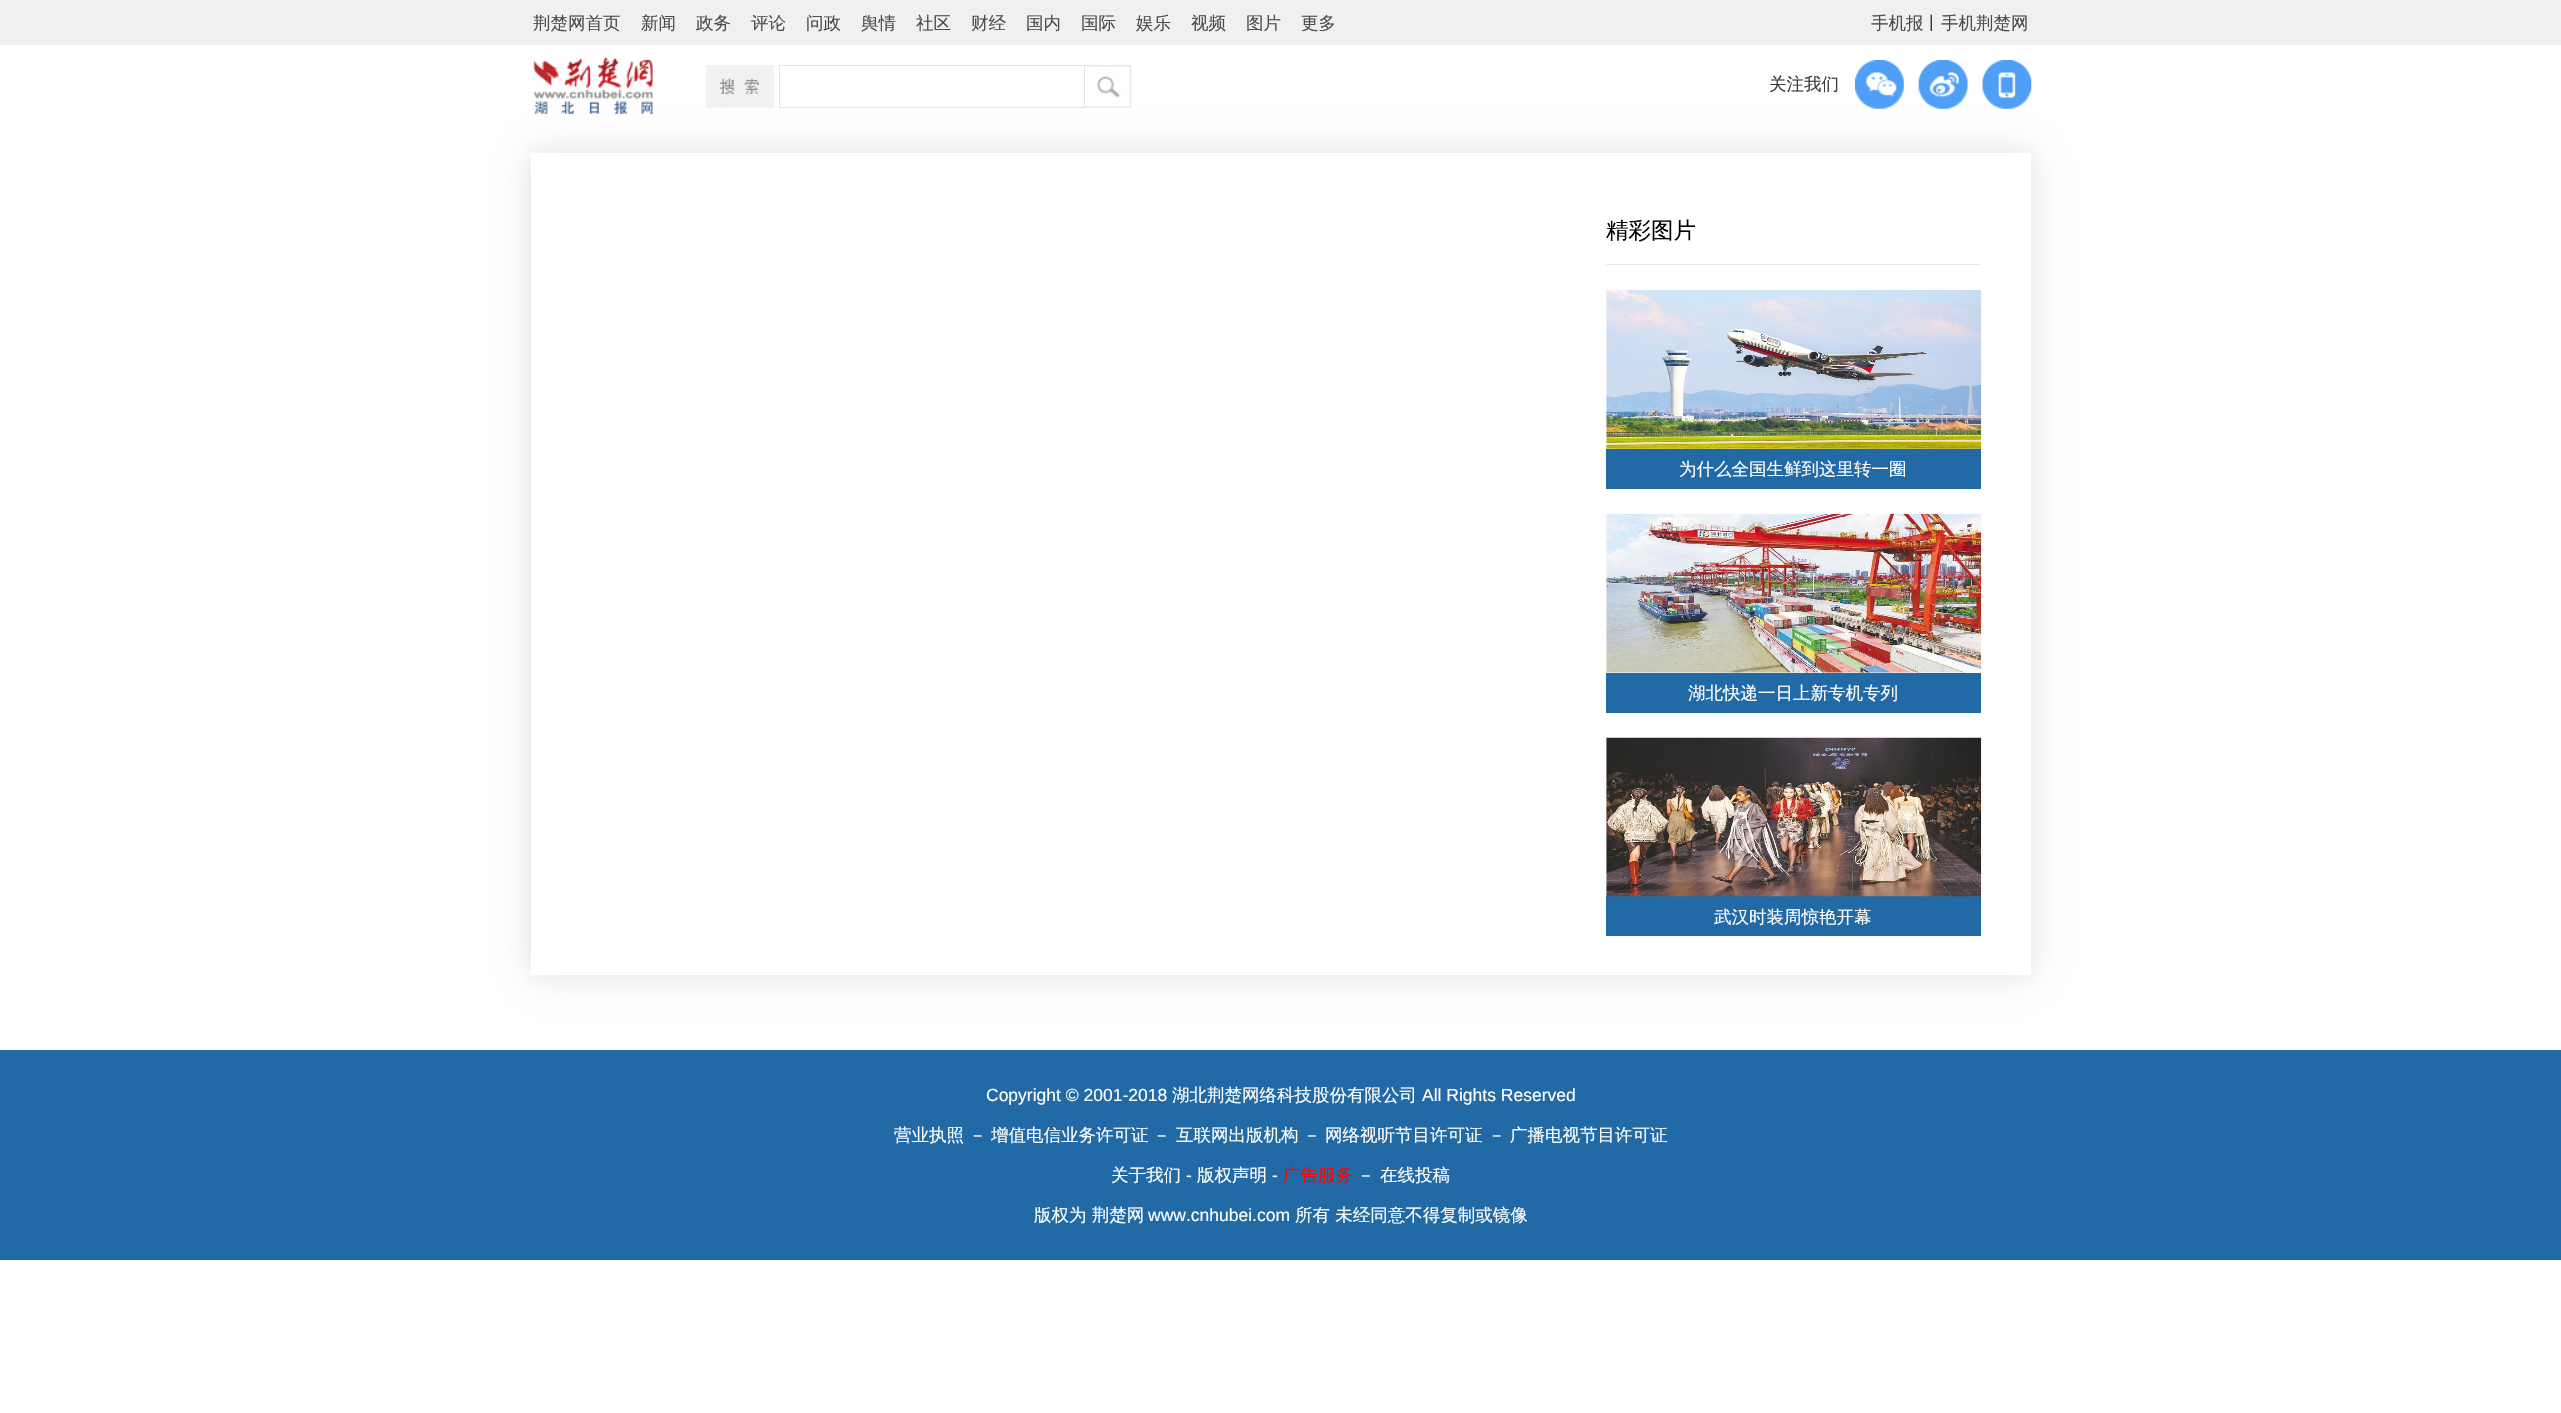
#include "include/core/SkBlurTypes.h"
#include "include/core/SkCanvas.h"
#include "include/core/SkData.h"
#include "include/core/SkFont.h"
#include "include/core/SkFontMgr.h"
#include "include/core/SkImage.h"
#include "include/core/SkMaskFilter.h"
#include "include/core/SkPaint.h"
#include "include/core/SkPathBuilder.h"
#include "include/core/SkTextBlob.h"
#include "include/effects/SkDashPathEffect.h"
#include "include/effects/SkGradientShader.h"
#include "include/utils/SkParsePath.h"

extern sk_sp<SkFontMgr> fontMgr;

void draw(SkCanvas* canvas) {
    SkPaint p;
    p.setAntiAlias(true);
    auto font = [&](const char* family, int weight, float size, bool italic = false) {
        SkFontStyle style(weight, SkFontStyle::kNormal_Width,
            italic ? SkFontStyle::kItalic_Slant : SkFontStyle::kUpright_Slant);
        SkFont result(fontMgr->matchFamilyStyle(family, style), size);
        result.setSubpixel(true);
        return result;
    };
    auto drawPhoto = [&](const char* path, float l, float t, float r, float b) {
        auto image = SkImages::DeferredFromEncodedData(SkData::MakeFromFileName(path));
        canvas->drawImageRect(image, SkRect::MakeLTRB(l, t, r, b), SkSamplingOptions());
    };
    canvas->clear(0xFFFFFFFF);
    p.setColor(0xFFF0F0F0);
    canvas->drawRect(SkRect::MakeLTRB(0, 0, 2561, 45), p);
    auto font1 = font("WenQuanYi Zen Hei", 500, 17.5f);
    p.setColor(0xFF4C4C4C);
    {
        const struct { const char* s; float x, y; } items[] = {
            {"荆楚网首页", 533, 29},
            {"新闻", 641, 29},
            {"政务", 696, 29},
            {"评论", 751, 29},
            {"问政", 806, 29},
            {"舆情", 861, 29},
            {"社区", 916, 29},
            {"财经", 971, 29},
            {"国内", 1026, 29},
            {"国际", 1081, 29},
            {"娱乐", 1136, 29},
            {"视频", 1191, 29},
            {"图片", 1246, 29},
            {"更多", 1301, 29},
            {"手机报", 1871, 29},
        };
        for (auto [s, x, y] : items) {
            canvas->drawString(s, x, y, font1, p);
        }
    }
    p.setColor(0xFF393939);
    canvas->drawString("丨", 1923, 29, font1, p);
    p.setColor(0xFF4C4C4C);
    canvas->drawString("手机荆楚网", 1941, 29, font1, p);
    drawPhoto("media/1.png", 533, 57, 653, 114);
    drawPhoto("media/2.png", 706, 65, 774, 108);
    p.setStyle(SkPaint::kStroke_Style);
    p.setStrokeWidth(1);
    p.setColor(0xFFE5E5E5);
    canvas->drawRect(SkRect::MakeLTRB(779.5f, 65.5f, 1084.5f, 107.5f), p);
    drawPhoto("media/3.png", 1085, 65, 1132, 108);
    p.setStyle(SkPaint::kFill_Style);
    p.setColor(0xFF393939);
    canvas->drawString("关注我们", 1769, 90, font1, p);
    drawPhoto("media/4.png", 1855, 60, 1904, 109);
    drawPhoto("media/5.png", 1918, 60, 1968, 109);
    drawPhoto("media/6.png", 1982, 60, 2032, 109);
    canvas->save();
    canvas->clipPath(SkPathBuilder(SkPathFillType::kEvenOdd).moveTo(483, 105).lineTo(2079, 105).lineTo(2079, 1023).lineTo(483, 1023).close().moveTo(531, 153).lineTo(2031, 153).lineTo(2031, 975).lineTo(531, 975).close().detach(), true);
    p.setColor(0x21000000);
    p.setMaskFilter(SkMaskFilter::MakeBlur(kNormal_SkBlurStyle, 15.5f));
    canvas->drawRect(SkRect::MakeLTRB(531, 153, 2031, 975), p);
    p.setMaskFilter(nullptr);
    canvas->restore();
    p.setColor(0xFFE8E8E8);
    canvas->drawRect(SkRect::MakeLTRB(1606, 264, 1981, 265), p);
    auto font2 = font("WenQuanYi Zen Hei", 500, 22.5f);
    p.setColor(0xFF000000);
    canvas->drawString("精彩图片", 1606, 238, font2, p);
    drawPhoto("media/7.png", 1606, 290, 1982, 449);
    p.setColor(0xFF226AA5);
    canvas->drawRect(SkRect::MakeLTRB(1606, 449, 1981, 489), p);
    p.setColor(0xFFFFFFFF);
    canvas->drawString("为什么全国生鲜到这里转一圈", 1679, 475, font1, p);
    drawPhoto("media/8.png", 1606, 513, 1982, 673);
    p.setColor(0xFF226AA5);
    canvas->drawRect(SkRect::MakeLTRB(1606, 673, 1981, 713), p);
    p.setColor(0xFFFFFFFF);
    canvas->drawString("湖北快递一日上新专机专列", 1688, 699, font1, p);
    p.setColor(0xFF226AA5);
    canvas->drawRect(SkRect::MakeLTRB(1606, 896, 1981, 936), p);
    drawPhoto("media/9.png", 1606, 737, 1982, 897);
    p.setColor(0xFFFFFFFF);
    canvas->drawString("武汉时装周惊艳开幕", 1714, 923, font1, p);
    p.setColor(0xFF226AA5);
    canvas->drawRect(SkRect::MakeLTRB(0, 1050, 2561, 1260), p);
    auto font3 = font("Liberation Sans", 400, 17.5f);
    p.setColor(0xFFFFFFFF);
    canvas->drawString("Copyright © 2001-2018", 986, 1101, font3, p);
    canvas->drawString("湖北荆楚网络科技股份有限公司", 1172, 1101, font1, p);
    canvas->drawString("All Rights Reserved", 1422, 1101, font3, p);
    {
        const struct { const char* s; float x, y; } items[] = {
            {"营业执照", 894, 1141},
            {"－", 969, 1141},
            {"增值电信业务许可证", 991, 1141},
            {"－", 1153, 1141},
            {"互联网出版机构", 1176, 1141},
            {"－", 1303, 1141},
            {"网络视听节目许可证", 1325, 1141},
            {"－", 1488, 1141},
            {"广播电视节目许可证", 1510, 1141},
            {"关于我们", 1111, 1181},
        };
        for (auto [s, x, y] : items) {
            canvas->drawString(s, x, y, font1, p);
        }
    }
    canvas->drawString("-", 1186, 1181, font3, p);
    canvas->drawString("版权声明", 1197, 1181, font1, p);
    canvas->drawString("-", 1272, 1181, font3, p);
    p.setColor(0xFFFF0000);
    canvas->drawString("广告服务", 1283, 1181, font1, p);
    p.setColor(0xFFFFFFFF);
    {
        const struct { const char* s; float x, y; } items[] = {
            {"－", 1357, 1181},
            {"在线投稿", 1380, 1181},
            {"版权为 荆楚网", 1034, 1221},
        };
        for (auto [s, x, y] : items) {
            canvas->drawString(s, x, y, font1, p);
        }
    }
    canvas->drawString("www.cnhubei.com", 1148, 1221, font3, p);
    canvas->drawString("所有 未经同意不得复制或镜像", 1295, 1221, font1, p);
}
